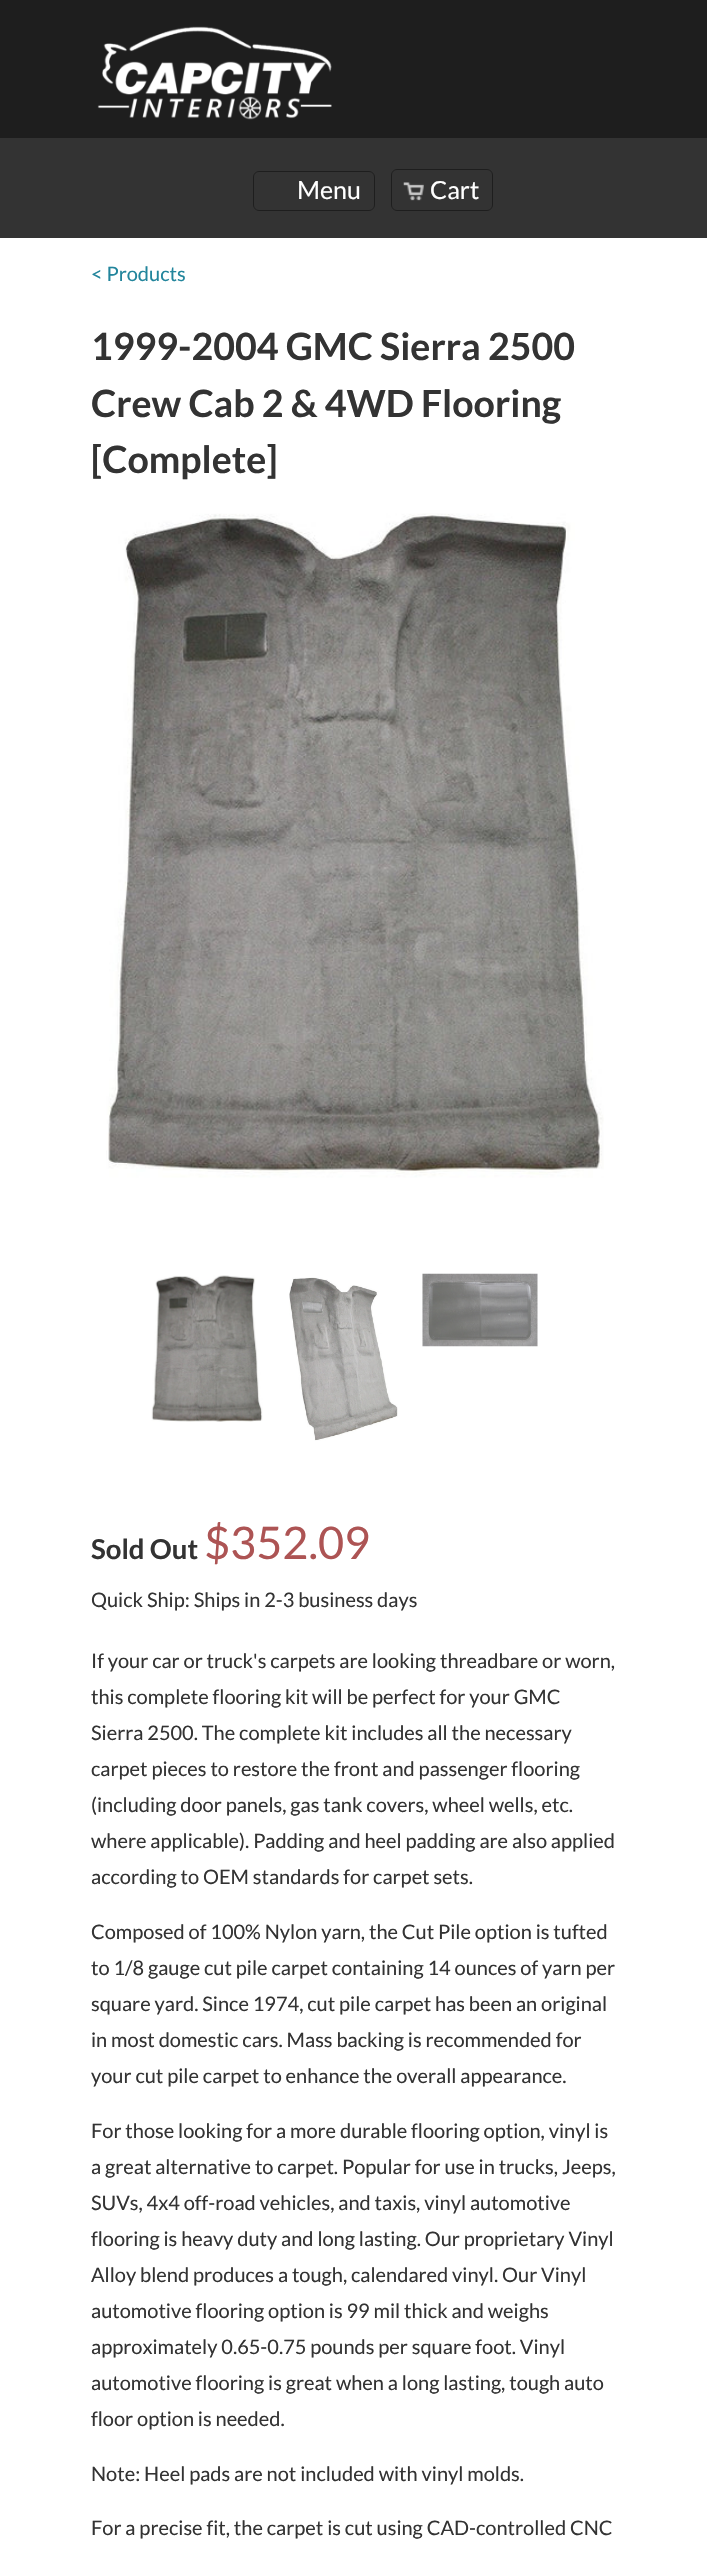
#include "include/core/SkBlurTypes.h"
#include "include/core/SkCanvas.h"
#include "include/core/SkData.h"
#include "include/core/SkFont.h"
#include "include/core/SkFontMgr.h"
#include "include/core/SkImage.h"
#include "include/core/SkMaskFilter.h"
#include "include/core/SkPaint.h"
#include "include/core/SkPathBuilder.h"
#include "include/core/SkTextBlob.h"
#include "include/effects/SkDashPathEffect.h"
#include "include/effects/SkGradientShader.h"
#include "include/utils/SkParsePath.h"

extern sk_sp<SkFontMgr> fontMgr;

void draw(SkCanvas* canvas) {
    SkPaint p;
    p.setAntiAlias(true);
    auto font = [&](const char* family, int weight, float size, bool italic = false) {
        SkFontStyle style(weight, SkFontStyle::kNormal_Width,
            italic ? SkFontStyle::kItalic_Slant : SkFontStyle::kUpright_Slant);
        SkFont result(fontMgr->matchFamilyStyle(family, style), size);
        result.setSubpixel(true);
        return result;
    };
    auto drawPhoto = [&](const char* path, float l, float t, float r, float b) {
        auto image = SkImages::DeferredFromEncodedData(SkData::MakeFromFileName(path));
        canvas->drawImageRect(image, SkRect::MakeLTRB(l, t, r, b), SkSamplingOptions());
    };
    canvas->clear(0xFFFFFFFF);
    p.setColor(0xFF1E1E1E);
    canvas->drawRect(SkRect::MakeLTRB(0, 0, 707, 138), p);
    drawPhoto("media/1.png", 97, 26, 332, 120);
    p.setColor(0xFF333333);
    canvas->drawRect(SkRect::MakeLTRB(0, 138, 707, 238), p);
    p.setStyle(SkPaint::kStroke_Style);
    p.setStrokeWidth(1);
    p.setColor(0xFF1E1E1E);
    canvas->drawRoundRect(SkRect::MakeLTRB(253.5f, 171.5f, 374.5f, 210.5f), 5.5f, 5.5f, p);
    auto font1 = font("Lato", 400, 25);
    p.setStyle(SkPaint::kFill_Style);
    p.setColor(0xFFFFFFFF);
    canvas->drawString("Menu", 297, 199, font1, p);
    drawPhoto("media/2.png", 403, 182, 424, 201);
    p.setStyle(SkPaint::kStroke_Style);
    p.setColor(0xFF1E1E1E);
    canvas->drawRoundRect(SkRect::MakeLTRB(391.5f, 169.5f, 492.5f, 210.5f), 5.5f, 5.5f, p);
    p.setStyle(SkPaint::kFill_Style);
    p.setColor(0xFFFFFFFF);
    canvas->drawString("Cart", 430, 199, font1, p);
    auto font2 = font("Lato", 400, 20);
    p.setColor(0xFF22859C);
    canvas->drawString("< Products", 91, 281, font2, p);
    auto font3 = font("Lato", 700, 37.5f);
    p.setColor(0xFF333333);
    {
        const struct { const char* s; float x, y; } items[] = {
            {"1999-2004 GMC Sierra 2500", 91, 360},
            {"Crew Cab 2 & 4WD Flooring", 91, 417},
            {"[Complete]", 91, 473},
        };
        for (auto [s, x, y] : items) {
            canvas->drawString(s, x, y, font3, p);
        }
    }
    drawPhoto("media/3.png", 106, 513, 604, 1178);
    drawPhoto("media/4.png", 151, 1275, 263, 1422);
    drawPhoto("media/5.png", 289, 1277, 398, 1441);
    drawPhoto("media/6.png", 422, 1273, 538, 1347);
    auto font4 = font("Lato", 700, 27.5f);
    canvas->drawString("Sold Out", 91, 1559, font4, p);
    auto font5 = font("Lato", 400, 45);
    p.setColor(0xFFAD5454);
    canvas->drawString("$352.09", 204, 1559, font5, p);
    p.setColor(0xFF333333);
    {
        const struct { const char* s; float x, y; } items[] = {
            {"Quick Ship: Ships in 2-3 business days", 91, 1607},
            {"If your car or truck's carpets are looking threadbare or worn,", 91, 1668},
            {"this complete flooring kit will be perfect for your GMC", 91, 1704},
            {"Sierra 2500. The complete kit includes all the necessary", 91, 1740},
            {"carpet pieces to restore the front and passenger flooring", 91, 1776},
            {"(including door panels, gas tank covers, wheel wells, etc.", 91, 1812},
            {"where applicable). Padding and heel padding are also applied", 91, 1848},
            {"according to OEM standards for carpet sets.", 91, 1884},
            {"Composed of 100% Nylon yarn, the Cut Pile option is tufted", 91, 1939},
            {"to 1/8 gauge cut pile carpet containing 14 ounces of yarn per", 91, 1975},
            {"square yard. Since 1974, cut pile carpet has been an original", 91, 2011},
            {"in most domestic cars. Mass backing is recommended for", 91, 2047},
            {"your cut pile carpet to enhance the overall appearance.", 91, 2083},
            {"For those looking for a more durable flooring option, vinyl is", 91, 2138},
            {"a great alternative to carpet. Popular for use in trucks, Jeeps,", 91, 2174},
            {"SUVs, 4x4 off-road vehicles, and taxis, vinyl automotive", 91, 2210},
            {"flooring is heavy duty and long lasting. Our proprietary Vinyl", 91, 2246},
            {"Alloy blend produces a tough, calendared vinyl. Our Vinyl", 91, 2282},
            {"automotive flooring option is 99 mil thick and weighs", 91, 2318},
            {"approximately 0.65-0.75 pounds per square foot. Vinyl", 91, 2354},
            {"automotive flooring is great when a long lasting, tough auto", 91, 2390},
            {"floor option is needed.", 91, 2426},
            {"Note: Heel pads are not included with vinyl molds.", 91, 2481},
            {"For a precise fit, the carpet is cut using CAD-controlled CNC", 91, 2535},
        };
        for (auto [s, x, y] : items) {
            canvas->drawString(s, x, y, font2, p);
        }
    }
}
